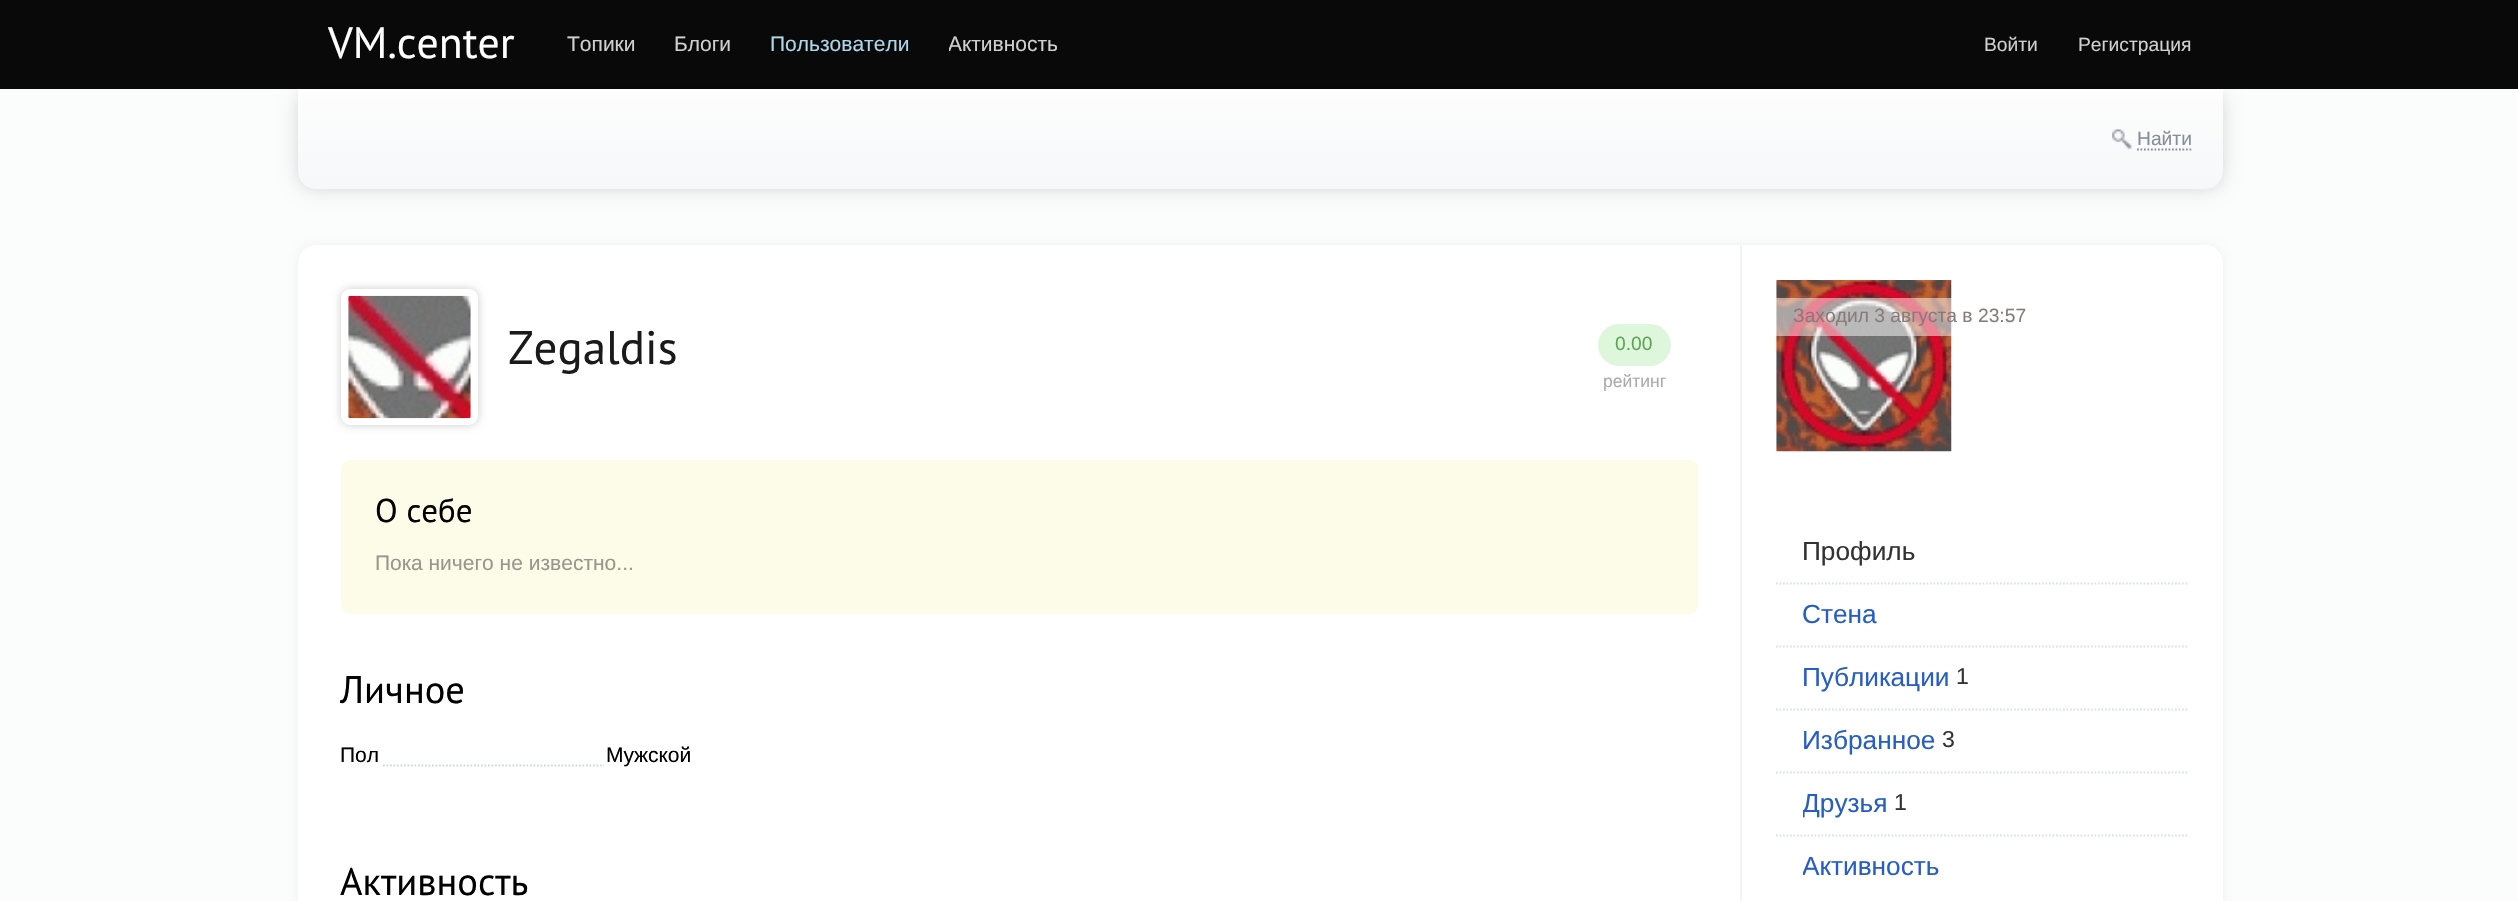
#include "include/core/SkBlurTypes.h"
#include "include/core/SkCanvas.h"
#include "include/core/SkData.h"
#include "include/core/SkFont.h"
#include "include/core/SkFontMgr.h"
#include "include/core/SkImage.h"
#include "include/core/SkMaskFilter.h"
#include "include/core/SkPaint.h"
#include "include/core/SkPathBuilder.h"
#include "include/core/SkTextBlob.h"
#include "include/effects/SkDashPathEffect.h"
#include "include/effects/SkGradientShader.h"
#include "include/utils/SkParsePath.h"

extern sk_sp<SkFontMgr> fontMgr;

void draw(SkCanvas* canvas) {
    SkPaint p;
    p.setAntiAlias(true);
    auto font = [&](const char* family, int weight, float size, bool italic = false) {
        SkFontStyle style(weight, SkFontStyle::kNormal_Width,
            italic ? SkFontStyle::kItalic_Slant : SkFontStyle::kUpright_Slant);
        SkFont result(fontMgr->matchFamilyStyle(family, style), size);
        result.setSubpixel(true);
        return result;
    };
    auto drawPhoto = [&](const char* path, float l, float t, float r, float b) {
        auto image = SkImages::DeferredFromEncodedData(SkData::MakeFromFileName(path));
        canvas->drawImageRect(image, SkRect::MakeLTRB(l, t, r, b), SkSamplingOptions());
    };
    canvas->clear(0xFFFBFCFC);
    p.setColor(0xFF090909);
    canvas->drawRect(SkRect::MakeLTRB(0, 0, 2518, 89), p);
    auto font1 = font("PT Sans", 400, 43.75f);
    p.setColor(0xFFFFFFFF);
    canvas->drawString("VM.center", 328, 58, font1, p);
    auto font2 = font("Liberation Sans", 400, 21);
    p.setColor(0xFFCFCFCF);
    canvas->drawString("Топики", 567, 51, font2, p);
    canvas->drawString("Блоги", 674, 51, font2, p);
    p.setColor(0xFFAED6E9);
    canvas->drawString("Пользователи", 770, 51, font2, p);
    canvas->save();
    canvas->clipRect(SkRect::MakeLTRB(949, 0, 1059, 88));
    p.setColor(0xFFCFCFCF);
    canvas->drawString("Активность", 948, 51, font2, p);
    canvas->restore();
    auto font3 = font("Liberation Sans", 400, 19.25f);
    canvas->drawString("Войти", 1984, 51, font3, p);
    canvas->drawString("Регистрация", 2078, 51, font3, p);
    p.setColor(0x26000000);
    p.setMaskFilter(SkMaskFilter::MakeBlur(kNormal_SkBlurStyle, 9));
    canvas->drawRoundRect(SkRect::MakeLTRB(298, 89, 2223, 189), 18, 18, p);
    p.setMaskFilter(nullptr);
    {
        const SkColor colors[] = {0xFFFDFDFD, 0xFFF6F8F9};
        const float stops[] = {0, 1};
        const SkPoint ends[] = {{1260, 89}, {1260, 189}};
        p.setShader(SkGradientShader::MakeLinear(ends, colors, stops, 2, SkTileMode::kClamp));
        p.setAlpha(255);
    }
    canvas->drawPath(SkPathBuilder().moveTo(298, 89).lineTo(2223, 89).lineTo(2223, 171).cubicTo(2223, 181, 2215, 189, 2205, 189).lineTo(316, 189).cubicTo(306, 189, 298, 181, 298, 171).close().detach(), p);
    drawPhoto("media/1.png", 2112, 129, 2132, 150);
    p.setShader(nullptr);
    p.setColor(0xFF878E96);
    canvas->drawString("Найти", 2137, 145, font3, p);
    p.setStyle(SkPaint::kStroke_Style);
    p.setStrokeWidth(1.8f);
    p.setPathEffect(SkDashPathEffect::Make({{1.75f, 1.75f}}, 0));
    canvas->drawPath(SkPathBuilder().moveTo(2137, 149.5f).lineTo(2193, 149.5f).detach(), p);
    p.setPathEffect(nullptr);
    p.setStyle(SkPaint::kFill_Style);
    p.setColor(0x0D000000);
    p.setMaskFilter(SkMaskFilter::MakeBlur(kNormal_SkBlurStyle, 4.5f));
    canvas->drawRoundRect(SkRect::MakeLTRB(298, 245, 2223, 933), 18, 18, p);
    p.setMaskFilter(nullptr);
    p.setColor(0xFFFFFFFF);
    canvas->drawRoundRect(SkRect::MakeLTRB(298, 245, 2223, 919), 18, 18, p);
    p.setColor(0x33000000);
    p.setMaskFilter(SkMaskFilter::MakeBlur(kNormal_SkBlurStyle, 4.5f));
    canvas->drawRoundRect(SkRect::MakeLTRB(341, 289, 478, 425), 9, 9, p);
    p.setMaskFilter(nullptr);
    p.setColor(0xFFFFFFFF);
    canvas->drawRoundRect(SkRect::MakeLTRB(344.5f, 292.5f, 474.5f, 421.5f), 5.5f, 5.5f, p);
    p.setStyle(SkPaint::kStroke_Style);
    p.setStrokeWidth(7);
    canvas->drawRoundRect(SkRect::MakeLTRB(344.5f, 292.5f, 474.5f, 421.5f), 5.5f, 5.5f, p);
    drawPhoto("media/2.png", 348, 295, 471, 419);
    auto font4 = font("PT Sans", 400, 47);
    p.setStyle(SkPaint::kFill_Style);
    p.setColor(0xFF1A1A1A);
    canvas->drawString("Zegaldis", 508, 364, font4, p);
    p.setColor(0xFFDEF7DC);
    canvas->drawRoundRect(SkRect::MakeLTRB(1598, 324, 1671, 366), 21, 21, p);
    p.setColor(0xFF5FA459);
    canvas->drawString("0.00", 1615, 350, font3, p);
    auto font5 = font("Liberation Sans", 400, 17.5f);
    p.setColor(0xFFAAAAAA);
    canvas->drawString("рейтинг", 1603, 387, font5, p);
    p.setColor(0xFFFCFCE9);
    canvas->drawRoundRect(SkRect::MakeLTRB(341, 460, 1698, 614), 9, 9, p);
    auto font6 = font("PT Sans", 400, 33);
    p.setColor(0xFF000000);
    canvas->drawString("О себе", 375, 522, font6, p);
    p.setColor(0xFF97978C);
    canvas->drawString("Пока ничего не известно...", 375, 570, font2, p);
    auto font7 = font("PT Sans", 400, 38.5f);
    p.setColor(0xFF000000);
    canvas->drawString("Личное", 340, 703, font7, p);
    canvas->drawString("Пол", 340, 762, font2, p);
    p.setStyle(SkPaint::kStroke_Style);
    p.setStrokeWidth(1.8f);
    p.setColor(0xFFD1D8DC);
    p.setPathEffect(SkDashPathEffect::Make({{1.75f, 1.75f}}, 0));
    canvas->drawPath(SkPathBuilder().moveTo(341, 765.5f).lineTo(983.5f, 765.5f).detach(), p);
    p.setPathEffect(nullptr);
    p.setStyle(SkPaint::kFill_Style);
    p.setColor(0xFFFFFFFF);
    canvas->drawRect(SkRect::MakeLTRB(341, 764, 382, 767), p);
    canvas->drawRect(SkRect::MakeLTRB(604, 764, 984, 767), p);
    p.setColor(0xFF000000);
    canvas->drawString("Мужской", 606, 762, font2, p);
    canvas->drawString("Активность", 340, 895, font7, p);
    p.setColor(0xFFF1F3F5);
    canvas->drawRect(SkRect::MakeLTRB(1740, 245, 1742, 901), p);
    drawPhoto("media/3.png", 1776, 280, 1952, 452);
    p.setColor(0x80FFFFFF);
    canvas->drawRect(SkRect::MakeLTRB(1776, 298, 1952, 336), p);
    p.setColor(0xFF877B7B);
    canvas->drawString("Заходил 3 августа в 23:57", 1793, 322, font3, p);
    p.setStyle(SkPaint::kStroke_Style);
    p.setColor(0xFFDCE1E6);
    p.setPathEffect(SkDashPathEffect::Make({{1.75f, 1.75f}}, 0));
    canvas->drawPath(SkPathBuilder().moveTo(1776, 583.5f).lineTo(2187.5f, 583.5f).detach(), p);
    p.setPathEffect(nullptr);
    auto font8 = font("Liberation Sans", 400, 26.25f);
    p.setStyle(SkPaint::kFill_Style);
    p.setColor(0xFF333333);
    canvas->drawString("Профиль", 1802, 560, font8, p);
    p.setStyle(SkPaint::kStroke_Style);
    p.setColor(0xFFDCE1E6);
    p.setPathEffect(SkDashPathEffect::Make({{1.75f, 1.75f}}, 0));
    canvas->drawPath(SkPathBuilder().moveTo(1776, 646.5f).lineTo(2187.5f, 646.5f).detach(), p);
    p.setPathEffect(nullptr);
    p.setStyle(SkPaint::kFill_Style);
    p.setColor(0xFF275EC2);
    canvas->drawString("Стена", 1802, 623, font8, p);
    p.setStyle(SkPaint::kStroke_Style);
    p.setColor(0xFFDCE1E6);
    p.setPathEffect(SkDashPathEffect::Make({{1.75f, 1.75f}}, 0));
    canvas->drawPath(SkPathBuilder().moveTo(1776, 709.5f).lineTo(2187.5f, 709.5f).detach(), p);
    p.setPathEffect(nullptr);
    p.setStyle(SkPaint::kFill_Style);
    p.setColor(0xFF275EC2);
    canvas->drawString("Публикации", 1802, 686, font8, p);
    auto font9 = font("Liberation Sans", 400, 23);
    p.setColor(0xFF333333);
    canvas->drawString("1", 1956, 684, font9, p);
    p.setStyle(SkPaint::kStroke_Style);
    p.setColor(0xFFDCE1E6);
    p.setPathEffect(SkDashPathEffect::Make({{1.75f, 1.75f}}, 0));
    canvas->drawPath(SkPathBuilder().moveTo(1776, 772.5f).lineTo(2187.5f, 772.5f).detach(), p);
    p.setPathEffect(nullptr);
    p.setStyle(SkPaint::kFill_Style);
    p.setColor(0xFF275EC2);
    canvas->drawString("Избранное", 1802, 749, font8, p);
    p.setColor(0xFF333333);
    canvas->drawString("3", 1942, 747, font9, p);
    p.setStyle(SkPaint::kStroke_Style);
    p.setColor(0xFFDCE1E6);
    p.setPathEffect(SkDashPathEffect::Make({{1.75f, 1.75f}}, 0));
    canvas->drawPath(SkPathBuilder().moveTo(1776, 835.5f).lineTo(2187.5f, 835.5f).detach(), p);
    p.setPathEffect(nullptr);
    canvas->save();
    canvas->clipRect(SkRect::MakeLTRB(1803, 788, 2170, 819));
    p.setStyle(SkPaint::kFill_Style);
    p.setColor(0xFF275EC2);
    canvas->drawString("Друзья", 1802, 812, font8, p);
    canvas->restore();
    p.setColor(0xFF333333);
    canvas->drawString("1", 1894, 810, font9, p);
    canvas->save();
    canvas->clipRect(SkRect::MakeLTRB(1803, 851, 2170, 882));
    p.setColor(0xFF275EC2);
    canvas->drawString("Активность", 1802, 875, font8, p);
    canvas->restore();
}
